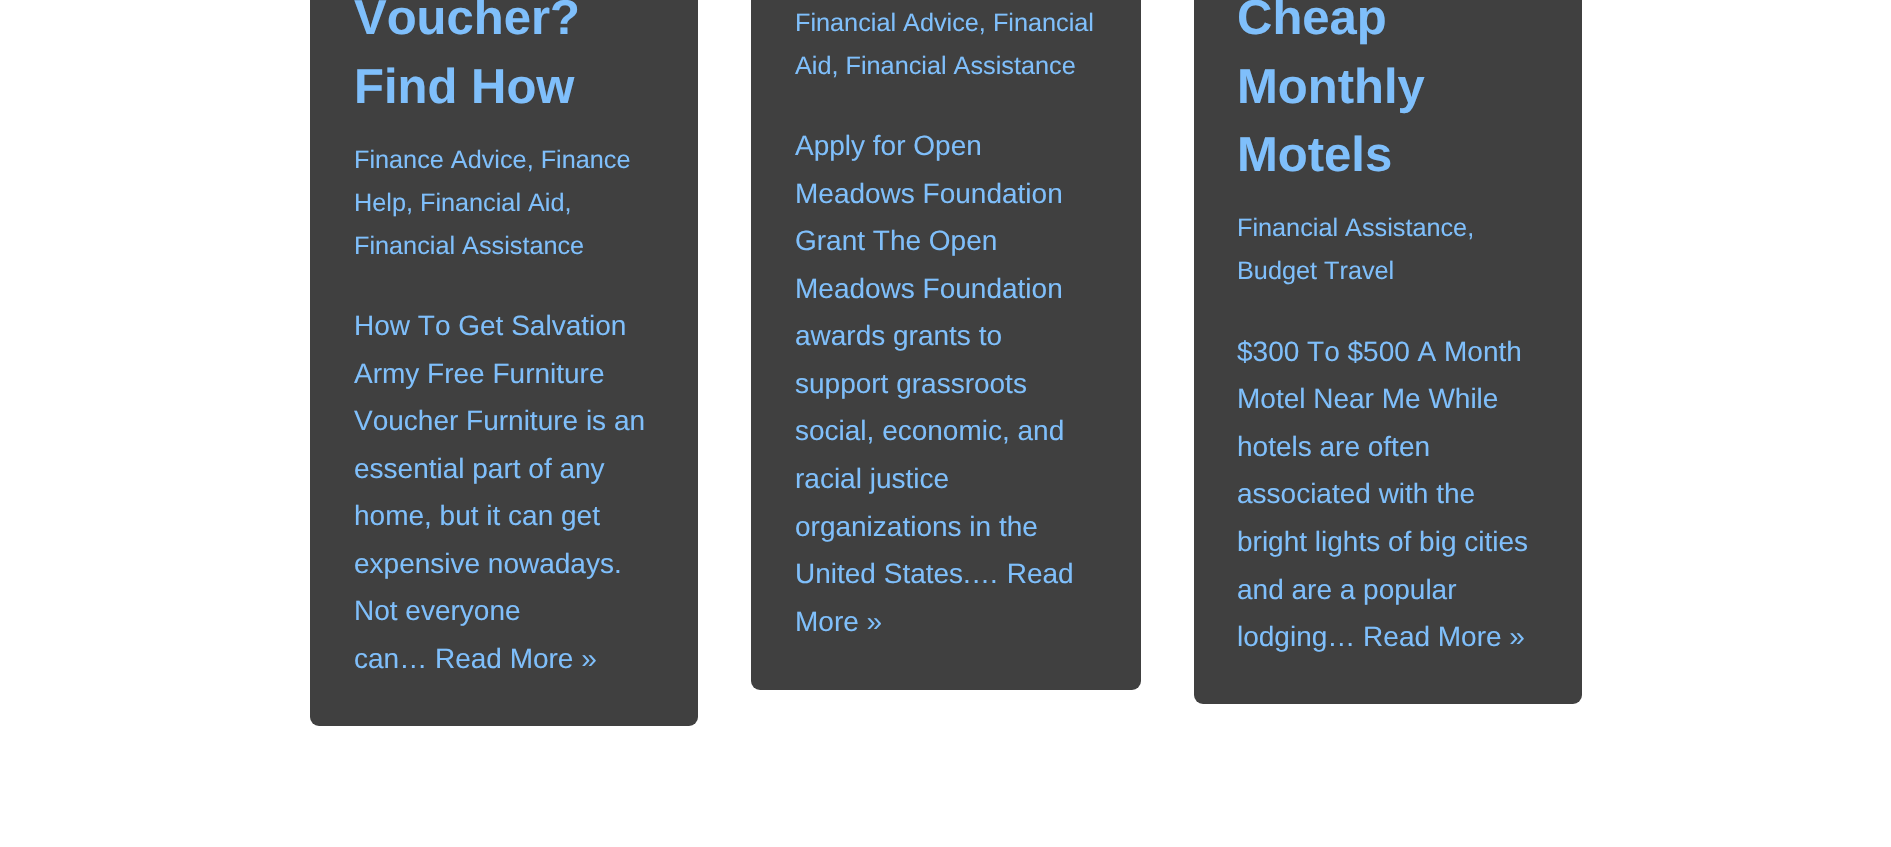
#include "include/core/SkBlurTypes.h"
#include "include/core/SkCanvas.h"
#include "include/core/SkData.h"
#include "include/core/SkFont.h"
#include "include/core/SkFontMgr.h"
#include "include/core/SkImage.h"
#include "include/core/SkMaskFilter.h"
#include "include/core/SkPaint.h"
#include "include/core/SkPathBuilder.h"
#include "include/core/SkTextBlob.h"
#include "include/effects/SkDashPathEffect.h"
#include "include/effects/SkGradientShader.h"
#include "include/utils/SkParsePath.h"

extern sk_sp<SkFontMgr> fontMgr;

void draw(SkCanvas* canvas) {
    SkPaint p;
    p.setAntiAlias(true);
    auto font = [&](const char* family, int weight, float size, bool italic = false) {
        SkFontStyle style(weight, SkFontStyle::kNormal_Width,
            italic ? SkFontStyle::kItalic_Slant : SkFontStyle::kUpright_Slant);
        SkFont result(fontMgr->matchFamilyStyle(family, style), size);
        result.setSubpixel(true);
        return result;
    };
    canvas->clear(0xFFFFFFFF);
    p.setColor(0xFF404040);
    canvas->drawRoundRect(SkRect::MakeLTRB(310, -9, 698, 726), 9, 9, p);
    auto font1 = font("Liberation Sans", 700, 49);
    p.setColor(0xFF7FBFFB);
    canvas->drawString("Voucher?", 354, 34, font1, p);
    canvas->drawString("Find How", 354, 103, font1, p);
    auto font2 = font("Liberation Sans", 400, 25.25f);
    {
        const struct { const char* s; float x, y; } items[] = {
            {"Finance Advice, Finance", 354, 168},
            {"Help, Financial Aid,", 354, 211},
            {"Financial Assistance", 354, 254},
        };
        for (auto [s, x, y] : items) {
            canvas->drawString(s, x, y, font2, p);
        }
    }
    auto font3 = font("Liberation Sans", 400, 28);
    {
        const struct { const char* s; float x, y; } items[] = {
            {"How To Get Salvation", 354, 335},
            {"Army Free Furniture", 354, 383},
            {"Voucher Furniture is an", 354, 430},
            {"essential part of any", 354, 478},
            {"home, but it can get", 354, 525},
            {"expensive nowadays.", 354, 573},
            {"Not everyone", 354, 620},
            {"can… Read More »", 354, 668},
        };
        for (auto [s, x, y] : items) {
            canvas->drawString(s, x, y, font3, p);
        }
    }
    p.setColor(0xFF404040);
    canvas->drawRoundRect(SkRect::MakeLTRB(751, -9, 1141, 690), 9, 9, p);
    p.setColor(0xFF7FBFFB);
    canvas->drawString("Financial Advice, Financial", 795, 31, font2, p);
    canvas->drawString("Aid, Financial Assistance", 795, 74, font2, p);
    {
        const struct { const char* s; float x, y; } items[] = {
            {"Apply for Open", 795, 155},
            {"Meadows Foundation", 795, 203},
            {"Grant The Open", 795, 250},
            {"Meadows Foundation", 795, 298},
            {"awards grants to", 795, 345},
            {"support grassroots", 795, 393},
            {"social, economic, and", 795, 440},
            {"racial justice", 795, 488},
            {"organizations in the", 795, 536},
            {"United States.… Read", 795, 583},
            {"More »", 795, 631},
        };
        for (auto [s, x, y] : items) {
            canvas->drawString(s, x, y, font3, p);
        }
    }
    p.setColor(0xFF404040);
    canvas->drawRoundRect(SkRect::MakeLTRB(1194, -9, 1582, 704), 9, 9, p);
    p.setColor(0xFF7FBFFB);
    {
        const struct { const char* s; float x, y; } items[] = {
            {"Cheap", 1237, 34},
            {"Monthly", 1237, 103},
            {"Motels", 1237, 171},
        };
        for (auto [s, x, y] : items) {
            canvas->drawString(s, x, y, font1, p);
        }
    }
    canvas->drawString("Financial Assistance,", 1237, 236, font2, p);
    canvas->drawString("Budget Travel", 1237, 279, font2, p);
    {
        const struct { const char* s; float x, y; } items[] = {
            {"$300 To $500 A Month", 1237, 361},
            {"Motel Near Me While", 1237, 408},
            {"hotels are often", 1237, 456},
            {"associated with the", 1237, 503},
            {"bright lights of big cities", 1237, 551},
            {"and are a popular", 1237, 599},
            {"lodging… Read More »", 1237, 646},
        };
        for (auto [s, x, y] : items) {
            canvas->drawString(s, x, y, font3, p);
        }
    }
}
